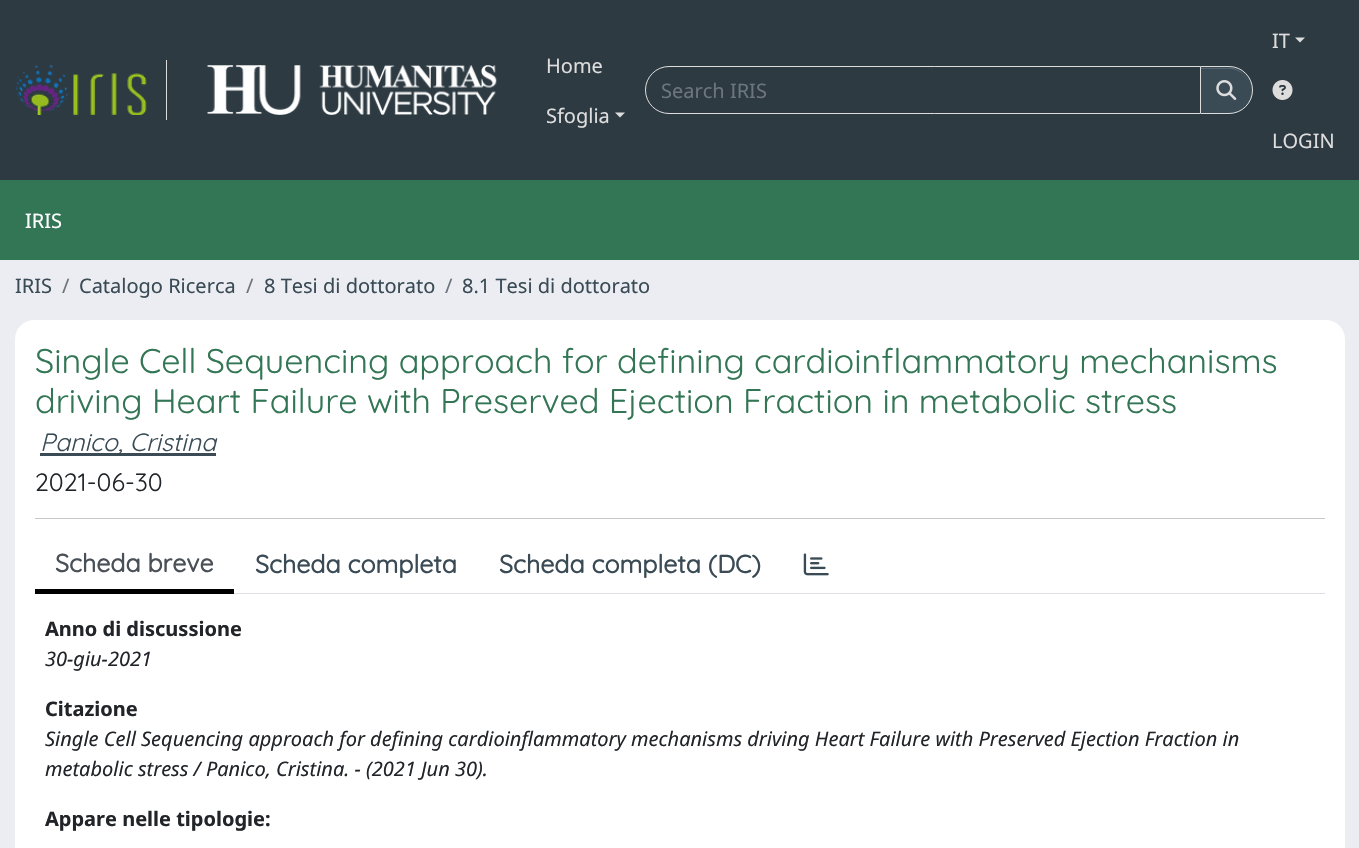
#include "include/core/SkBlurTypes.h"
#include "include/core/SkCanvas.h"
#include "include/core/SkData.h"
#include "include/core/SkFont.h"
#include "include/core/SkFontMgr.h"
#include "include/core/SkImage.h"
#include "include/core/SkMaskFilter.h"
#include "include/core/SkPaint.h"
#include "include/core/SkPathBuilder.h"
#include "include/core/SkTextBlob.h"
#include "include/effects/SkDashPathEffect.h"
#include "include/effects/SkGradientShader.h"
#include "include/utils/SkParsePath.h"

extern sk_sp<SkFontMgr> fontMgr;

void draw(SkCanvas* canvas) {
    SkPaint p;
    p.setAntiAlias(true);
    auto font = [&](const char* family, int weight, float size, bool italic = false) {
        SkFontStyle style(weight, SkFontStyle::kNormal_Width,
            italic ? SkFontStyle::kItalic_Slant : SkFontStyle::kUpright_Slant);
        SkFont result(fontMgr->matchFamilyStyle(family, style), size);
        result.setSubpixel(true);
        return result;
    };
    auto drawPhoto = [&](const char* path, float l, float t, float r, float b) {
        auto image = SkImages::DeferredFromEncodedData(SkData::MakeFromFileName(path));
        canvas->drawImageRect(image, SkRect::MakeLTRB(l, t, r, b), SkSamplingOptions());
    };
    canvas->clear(0xFFECEDF2);
    p.setColor(0xFF2D3A42);
    canvas->drawRect(SkRect::MakeLTRB(0, 0, 1359, 180), p);
    p.setColor(0xFFDDDDDD);
    canvas->drawRect(SkRect::MakeLTRB(166, 60, 167, 120), p);
    drawPhoto("media/1.png", 15, 65, 147, 115);
    drawPhoto("media/2.png", 207, 65, 497, 115);
    auto font1 = font("Noto Sans", 400, 20);
    canvas->drawString("Home", 546, 73, font1, p);
    canvas->drawString("Sfoglia", 546, 123, font1, p);
    canvas->drawPath(SkPathBuilder().moveTo(615, 112.5f).lineTo(625, 112.5f).lineTo(620, 117.5f).close().detach(), p);
    p.setStyle(SkPaint::kStroke_Style);
    p.setStrokeWidth(1);
    canvas->drawPath(SkPathBuilder().moveTo(669, 66.5f).lineTo(1200.5f, 66.5f).lineTo(1200.5f, 113.5f).lineTo(669, 113.5f).cubicTo(656, 113.5f, 645.5f, 103, 645.5f, 90).cubicTo(645.5f, 77, 656, 66.5f, 669, 66.5f).close().detach(), p);
    p.setStyle(SkPaint::kFill_Style);
    p.setColor(0xFF6C757D);
    canvas->drawString("Search IRIS", 661, 98, font1, p);
    p.setColor(0x12000000);
    p.setMaskFilter(SkMaskFilter::MakeBlur(kNormal_SkBlurStyle, 0.5f));
    canvas->drawRoundRect(SkRect::MakeLTRB(1200, 68, 1253, 115), 23.5f, 23.5f, p);
    p.setMaskFilter(nullptr);
    p.setColor(0xFF3A4B55);
    canvas->drawPath(SkPathBuilder().moveTo(1200, 66).lineTo(1229, 66).cubicTo(1242.5f, 66, 1253, 76.5f, 1253, 90).cubicTo(1253, 103.5f, 1242.5f, 114, 1229, 114).lineTo(1200, 114).close().detach(), p);
    p.setColor(0xFF58666F);
    canvas->drawPath(SkPathBuilder().moveTo(1201, 69).lineTo(1229, 69).cubicTo(1241, 69, 1251, 79, 1251, 91).cubicTo(1251, 80, 1243, 71, 1233, 68).lineTo(1201, 68).close().detach(), p);
    p.setStyle(SkPaint::kStroke_Style);
    p.setColor(0xFFDDDDDD);
    canvas->drawPath(SkPathBuilder().moveTo(1200.5f, 66.5f).lineTo(1229, 66.5f).cubicTo(1242, 66.5f, 1252.5f, 77, 1252.5f, 90).cubicTo(1252.5f, 103, 1242, 113.5f, 1229, 113.5f).lineTo(1200.5f, 113.5f).close().detach(), p);
    drawPhoto("media/3.png", 1216, 80, 1237, 100);
    p.setStyle(SkPaint::kFill_Style);
    canvas->drawString("IT", 1272, 48, font1, p);
    canvas->drawPath(SkPathBuilder().moveTo(1295, 37.5f).lineTo(1305, 37.5f).lineTo(1300, 42.5f).close().detach(), p);
    drawPhoto("media/4.png", 1272, 80, 1293, 100);
    canvas->drawString("LOGIN", 1272, 148, font1, p);
    p.setColor(0xFF337655);
    canvas->drawRect(SkRect::MakeLTRB(0, 180, 1359, 260), p);
    p.setColor(0xFFFFFFFF);
    canvas->drawString("IRIS", 25, 228, font1, p);
    p.setColor(0xFF3A4B55);
    canvas->drawString("IRIS", 15, 293, font1, p);
    p.setColor(0xFF6C757D);
    canvas->drawString("/", 62, 293, font1, p);
    p.setColor(0xFF3A4B55);
    canvas->drawString("Catalogo Ricerca", 79, 293, font1, p);
    p.setColor(0xFF6C757D);
    canvas->drawString("/", 246, 293, font1, p);
    p.setColor(0xFF3A4B55);
    canvas->drawString("8 Tesi di dottorato", 264, 293, font1, p);
    p.setColor(0xFF6C757D);
    canvas->drawString("/", 445, 293, font1, p);
    p.setColor(0xFF3A4B55);
    canvas->drawString("8.1 Tesi di dottorato", 462, 293, font1, p);
    p.setColor(0xFFFFFFFF);
    canvas->drawRoundRect(SkRect::MakeLTRB(15, 320, 1345, 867), 19, 19, p);
    auto font2 = font("Quicksand", 300, 34.15f);
    p.setColor(0xFF337655);
    canvas->drawString("Single Cell Sequencing approach for defining cardioinflammatory mechanisms", 35, 373, font2, p);
    canvas->drawString("driving Heart Failure with Preserved Ejection Fraction in metabolic stress", 35, 413, font2, p);
    p.setColor(0xFF3A4B55);
    canvas->drawRect(SkRect::MakeLTRB(40, 453, 216, 456), p);
    auto font3 = font("Quicksand", 300, 25, true);
    canvas->drawString("Panico, Cristina", 40, 451, font3, p);
    auto font4 = font("Quicksand", 300, 25);
    p.setColor(0xFF212529);
    canvas->drawString("2021-06-30", 35, 491, font4, p);
    {
        const struct { float l, t, r, b; SkColor color; } items[] = {
            {35, 518, 1325, 519, 0xFFC8C9CA},
            {234, 593, 1325, 594, 0xFFDEE2E6},
            {35, 589, 234, 594, 0xFF000000},
        };
        for (auto [l, t, r, b, color] : items) {
            p.setColor(color);
            canvas->drawRect(SkRect::MakeLTRB(l, t, r, b), p);
        }
    }
    auto font5 = font("Quicksand", 700, 25);
    p.setColor(0xFF495057);
    canvas->drawString("Scheda breve", 55, 572, font5, p);
    p.setColor(0xFF3A4B55);
    canvas->drawString("Scheda completa", 255, 573, font5, p);
    canvas->drawString("Scheda completa (DC)", 499, 573, font5, p);
    drawPhoto("media/5.png", 803, 553, 829, 576);
    auto font6 = font("Noto Sans", 700, 20);
    p.setColor(0xFF212529);
    canvas->drawString("Anno di discussione", 45, 636, font6, p);
    auto font7 = font("Noto Sans", 400, 20, true);
    canvas->drawString("30-giu-2021", 45, 666, font7, p);
    canvas->drawString("Citazione", 45, 716, font6, p);
    canvas->drawString("Single Cell Sequencing approach for defining cardioinflammatory mechanisms driving Heart Failure with Preserved Ejection Fraction in", 45, 746, font7, p);
    canvas->drawString("metabolic stress / Panico, Cristina. - (2021 Jun 30).", 45, 776, font7, p);
    canvas->drawString("Appare nelle tipologie:", 45, 826, font6, p);
}
